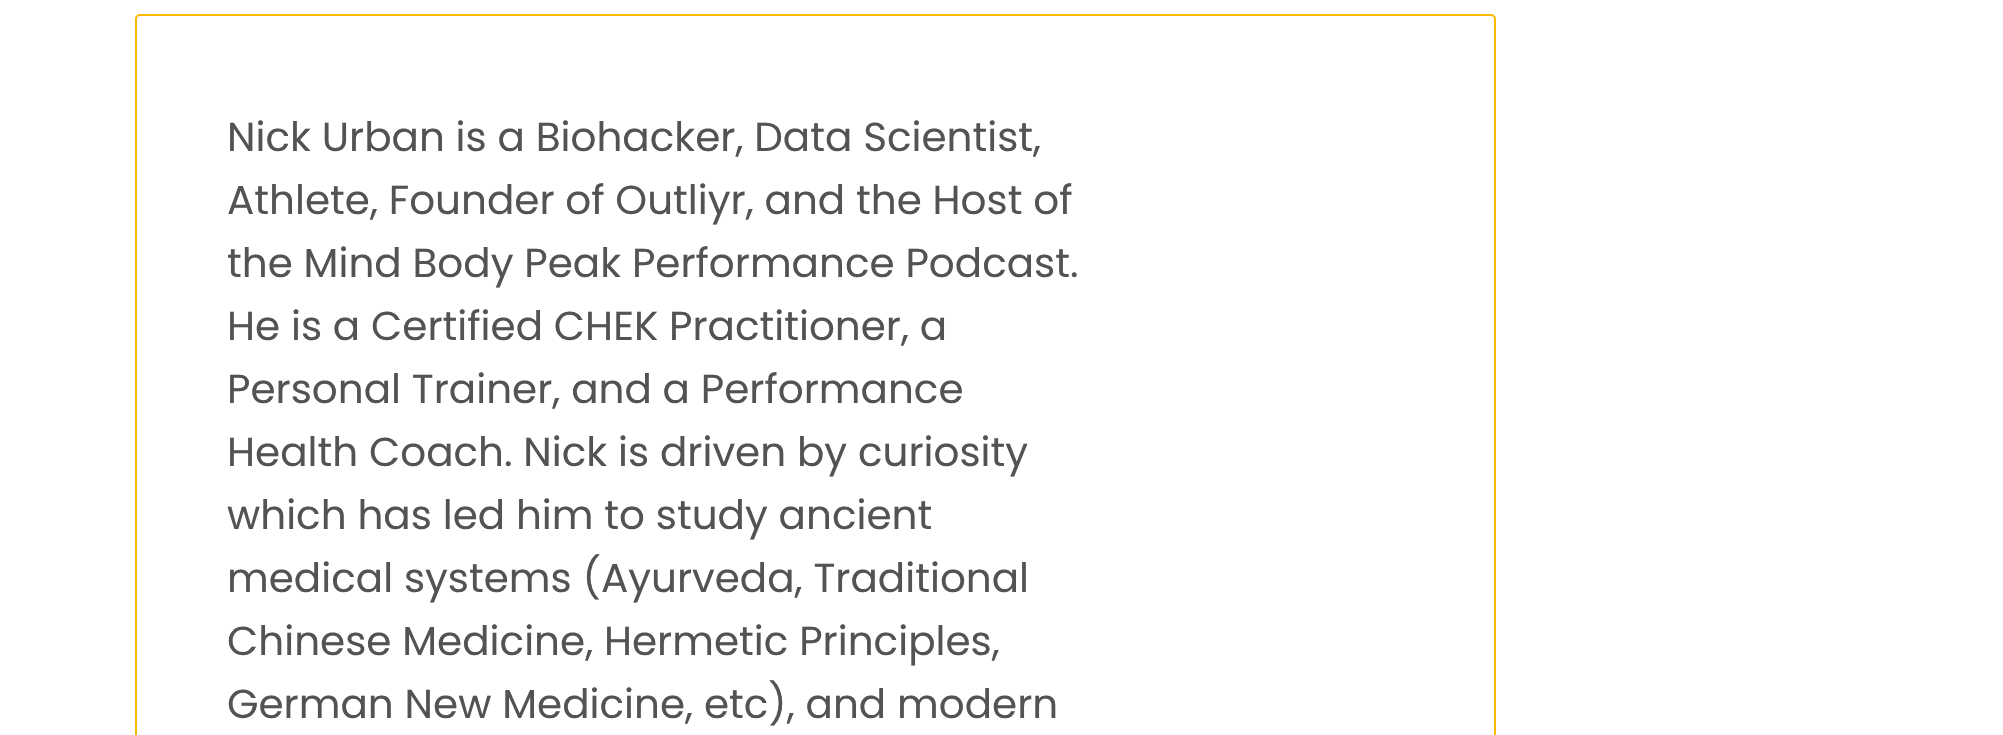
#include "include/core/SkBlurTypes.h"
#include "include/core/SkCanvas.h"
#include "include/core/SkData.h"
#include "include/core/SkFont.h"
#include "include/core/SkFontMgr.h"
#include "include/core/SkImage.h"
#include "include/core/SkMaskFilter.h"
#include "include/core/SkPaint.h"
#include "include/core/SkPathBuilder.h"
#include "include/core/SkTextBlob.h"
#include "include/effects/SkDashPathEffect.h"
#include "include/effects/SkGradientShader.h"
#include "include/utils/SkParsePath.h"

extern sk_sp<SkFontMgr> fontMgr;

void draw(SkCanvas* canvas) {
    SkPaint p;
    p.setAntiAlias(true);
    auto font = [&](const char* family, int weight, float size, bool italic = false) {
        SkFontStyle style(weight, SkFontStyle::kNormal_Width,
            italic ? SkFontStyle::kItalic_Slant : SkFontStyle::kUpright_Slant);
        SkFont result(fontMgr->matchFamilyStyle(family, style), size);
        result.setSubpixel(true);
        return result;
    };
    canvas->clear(0xFFFFFFFF);
    p.setStyle(SkPaint::kStroke_Style);
    p.setStrokeWidth(2);
    p.setColor(0xFFFCB900);
    canvas->drawRoundRect(SkRect::MakeLTRB(136, 15, 1495, 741), 4, 4, p);
    auto font1 = font("Poppins", 400, 40.5f);
    p.setStyle(SkPaint::kFill_Style);
    p.setColor(0xFF535353);
    {
        const struct { const char* s; float x, y; } items[] = {
            {"Nick Urban is a Biohacker, Data Scientist,", 227, 151},
            {"Athlete, Founder of Outliyr, and the Host of", 227, 214},
            {"the Mind Body Peak Performance Podcast.", 227, 277},
            {"He is a Certified CHEK Practitioner, a", 227, 340},
            {"Personal Trainer, and a Performance", 227, 403},
            {"Health Coach. Nick is driven by curiosity", 227, 466},
            {"which has led him to study ancient", 227, 529},
            {"medical systems (Ayurveda, Traditional", 227, 592},
            {"Chinese Medicine, Hermetic Principles,", 227, 655},
            {"German New Medicine, etc), and modern", 227, 718},
        };
        for (auto [s, x, y] : items) {
            canvas->drawString(s, x, y, font1, p);
        }
    }
}
